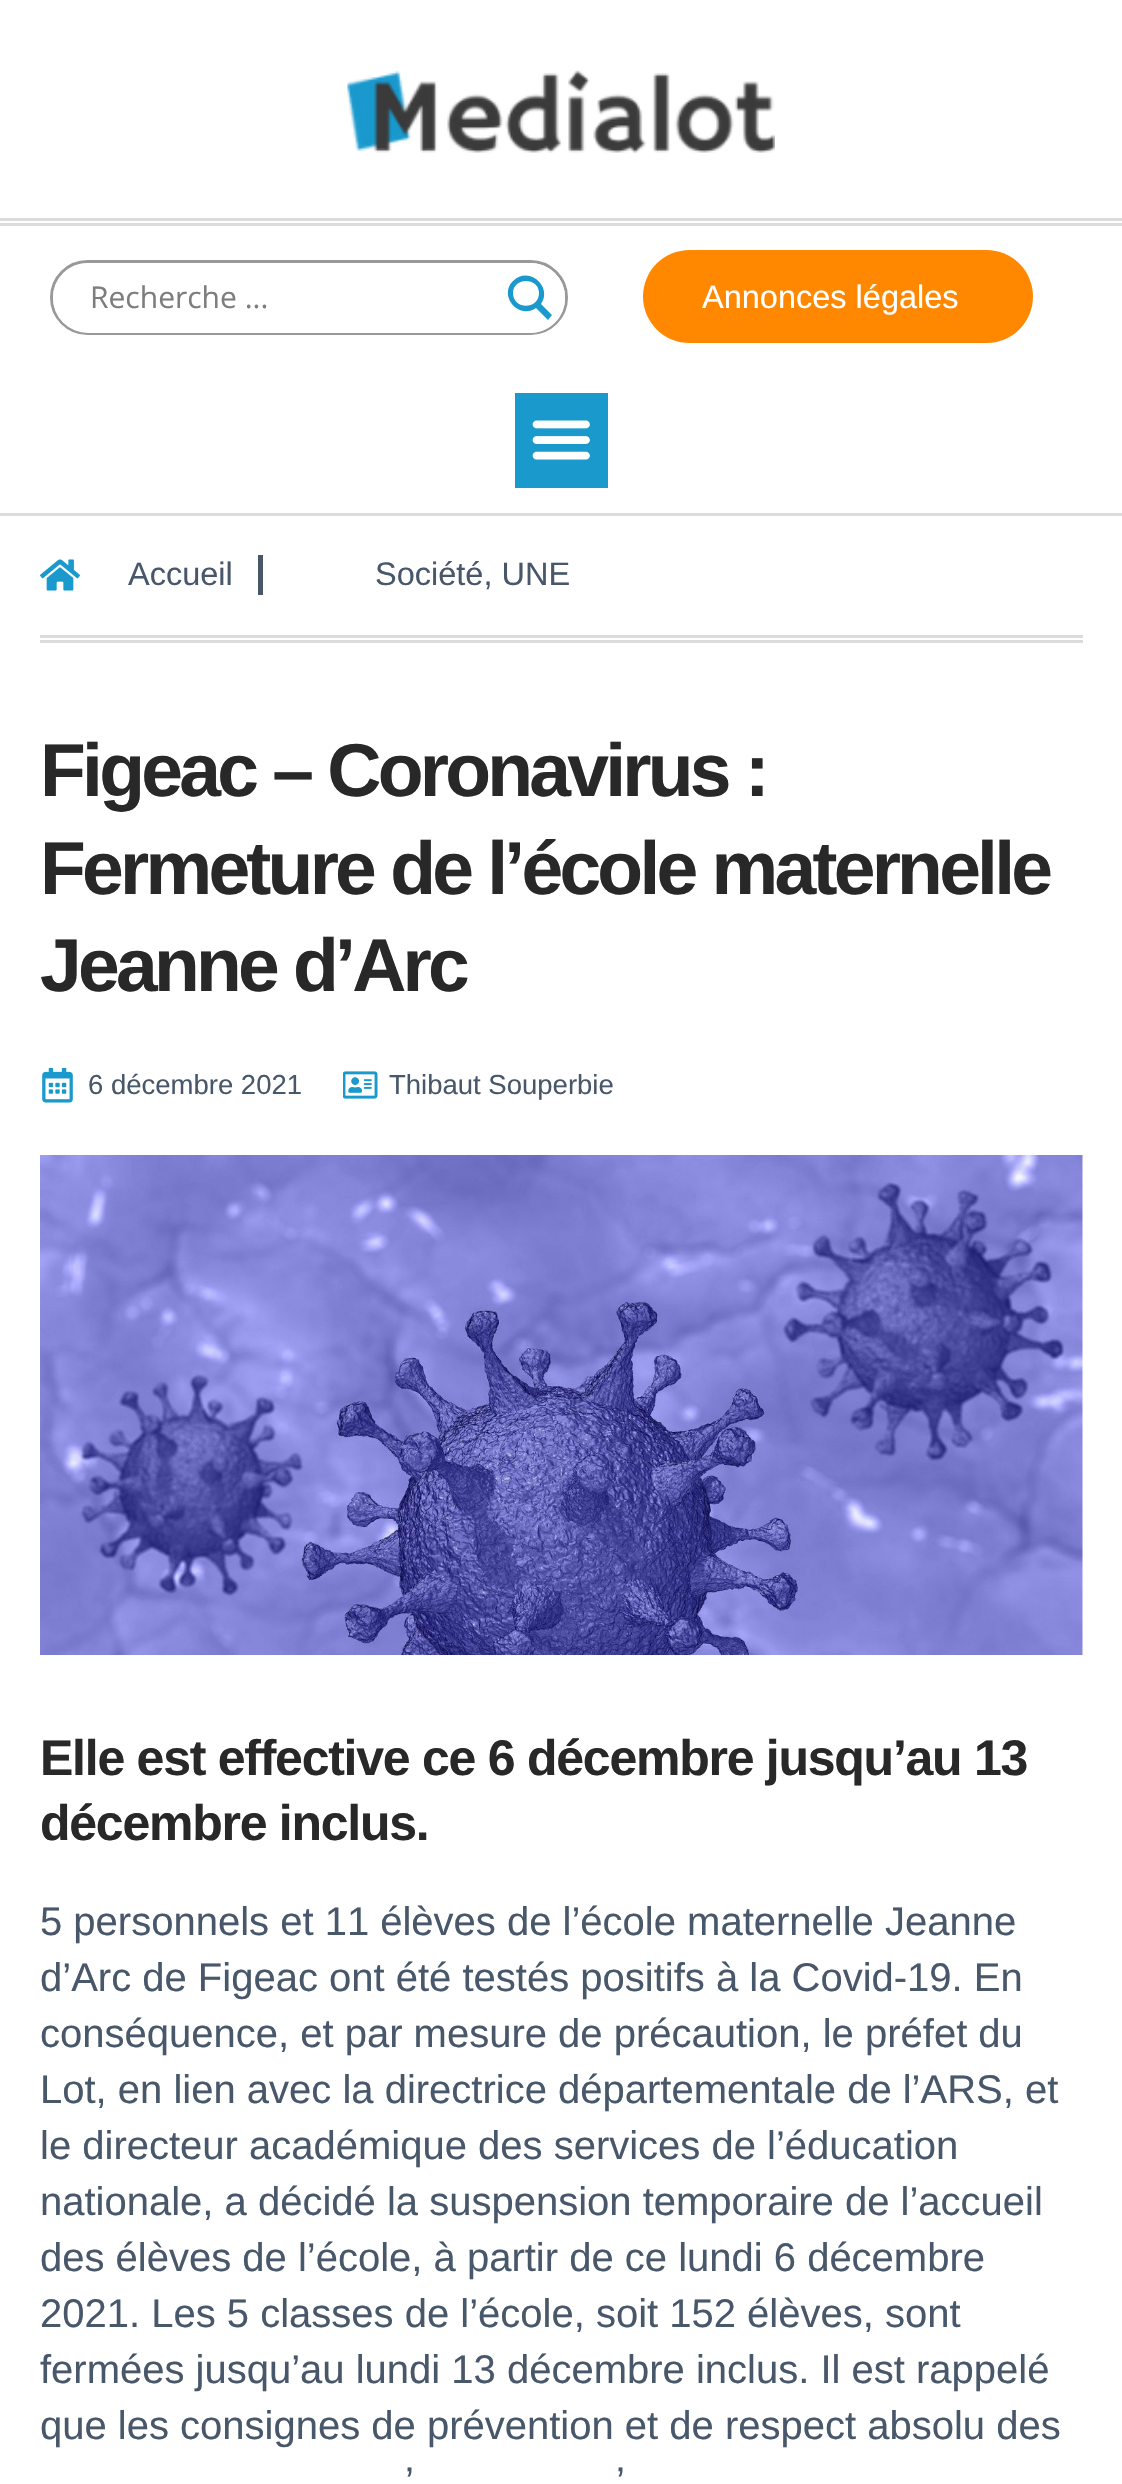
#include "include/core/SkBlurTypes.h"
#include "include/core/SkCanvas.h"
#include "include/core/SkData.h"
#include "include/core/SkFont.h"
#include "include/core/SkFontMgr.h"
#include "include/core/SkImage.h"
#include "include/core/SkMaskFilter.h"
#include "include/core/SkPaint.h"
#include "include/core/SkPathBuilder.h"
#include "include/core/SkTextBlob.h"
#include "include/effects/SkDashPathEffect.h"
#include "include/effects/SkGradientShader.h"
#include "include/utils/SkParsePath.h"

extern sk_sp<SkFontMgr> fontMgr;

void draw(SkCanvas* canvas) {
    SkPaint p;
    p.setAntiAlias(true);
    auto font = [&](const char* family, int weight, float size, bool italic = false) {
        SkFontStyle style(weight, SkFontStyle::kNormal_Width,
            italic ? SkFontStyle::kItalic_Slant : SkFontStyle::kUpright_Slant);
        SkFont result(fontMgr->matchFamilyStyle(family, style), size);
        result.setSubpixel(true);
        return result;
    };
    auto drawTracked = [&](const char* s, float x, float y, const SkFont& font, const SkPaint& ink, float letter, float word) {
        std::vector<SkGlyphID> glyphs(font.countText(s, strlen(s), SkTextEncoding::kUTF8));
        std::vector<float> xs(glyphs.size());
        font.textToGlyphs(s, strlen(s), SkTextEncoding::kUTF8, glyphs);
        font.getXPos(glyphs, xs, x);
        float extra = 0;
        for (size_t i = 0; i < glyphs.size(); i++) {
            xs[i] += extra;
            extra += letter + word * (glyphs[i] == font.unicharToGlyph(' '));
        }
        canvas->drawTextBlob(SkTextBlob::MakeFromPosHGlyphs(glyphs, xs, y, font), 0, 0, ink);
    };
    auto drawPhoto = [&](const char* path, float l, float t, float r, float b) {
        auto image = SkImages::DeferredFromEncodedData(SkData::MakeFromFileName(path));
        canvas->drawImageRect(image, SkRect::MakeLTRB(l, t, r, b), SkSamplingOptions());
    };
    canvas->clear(0xFFFFFFFF);
    p.setColor(0xFFDCDCDE);
    canvas->drawRect(SkRect::MakeLTRB(0, 218, 1122, 221), p);
    canvas->drawRect(SkRect::MakeLTRB(0, 223, 1122, 226), p);
    drawPhoto("media/1.png", 347, 70, 775, 153);
    canvas->drawRect(SkRect::MakeLTRB(0, 513, 1122, 516), p);
    p.setStyle(SkPaint::kStroke_Style);
    p.setStrokeWidth(3);
    p.setColor(0xFF999999);
    canvas->drawRoundRect(SkRect::MakeLTRB(51.5f, 261.5f, 566.5f, 333.5f), 36, 36, p);
    p.setStyle(SkPaint::kFill_Style);
    p.setColor(0xFFFFFFFF);
    canvas->drawRoundRect(SkRect::MakeLTRB(53, 263, 565, 333), 35, 35, p);
    auto font1 = font("Open Sans", 400, 30);
    p.setColor(0xFF7D7D7D);
    canvas->drawString("Recherche ...", 90, 308, font1, p);
    p.setColor(0xFFFFFFFF);
    canvas->drawPath(SkPathBuilder().moveTo(495, 263).lineTo(530, 263).cubicTo(549.5f, 263, 565, 278.5f, 565, 298).cubicTo(565, 317.5f, 549.5f, 333, 530, 333).lineTo(495, 333).close().detach(), p);
    p.setColor(0xFF1999CC);
    canvas->drawPath(SkPathBuilder().moveTo(552, 315).lineTo(541, 304).cubicTo(553, 287, 529, 265, 513, 281).cubicTo(498, 296, 519, 320, 536, 308).lineTo(548, 320).close().moveTo(513, 293).cubicTo(513, 277, 539, 277, 539, 293).cubicTo(539, 310, 513, 310, 513, 293).close().detach(), p);
    p.setColor(0xFFFF8800);
    canvas->drawRoundRect(SkRect::MakeLTRB(643, 250, 1033, 343), 46.5f, 46.5f, p);
    auto font2 = font("Liberation Sans", 400, 32.5f);
    p.setColor(0xFFFFFFFF);
    canvas->drawString("Annonces légales", 702, 308, font2, p);
    p.setColor(0xFF1999CC);
    canvas->drawRect(SkRect::MakeLTRB(515, 393, 608, 488), p);
    drawPhoto("media/2.png", 532, 420, 590, 460);
    p.setColor(0xFFDCDCDE);
    canvas->drawRect(SkRect::MakeLTRB(40, 635, 1083, 638), p);
    canvas->drawRect(SkRect::MakeLTRB(40, 640, 1083, 643), p);
    drawPhoto("media/3.png", 40, 559, 80, 591);
    p.setColor(0xFF48586A);
    canvas->drawString("Accueil", 128, 585, font2, p);
    canvas->drawRect(SkRect::MakeLTRB(258, 555, 263, 595), p);
    canvas->drawString("Société, UNE", 375, 585, font2, p);
    auto font3 = font("Liberation Sans", 700, 75);
    p.setColor(0xFF282828);
    {
        const struct { const char* s; float x, y; } items[] = {
            {"Figeac – Coronavirus :", 40, 796},
            {"Fermeture de l’école maternelle", 40, 894},
            {"Jeanne d’Arc", 40, 991},
        };
        for (auto [s, x, y] : items) {
            drawTracked(s, x, y, font3, p, -3.75f, 0);
        }
    }
    drawPhoto("media/4.png", 42, 1068, 73, 1103);
    auto font4 = font("Liberation Sans", 400, 27.5f);
    p.setColor(0xFF48586A);
    canvas->drawString("6 décembre 2021", 88, 1094, font4, p);
    drawPhoto("media/5.png", 343, 1071, 378, 1099);
    canvas->drawString("Thibaut Souperbie", 389, 1094, font4, p);
    drawPhoto("media/6.png", 40, 1155, 1083, 1655);
    auto font5 = font("Liberation Sans", 700, 50);
    p.setColor(0xFF282828);
    drawTracked("Elle est effective ce 6 décembre jusqu’au 13", 40, 1775, font5, p, -1.25f, 0);
    drawTracked("décembre inclus.", 40, 1840, font5, p, -1.25f, 0);
    auto font6 = font("Liberation Sans", 400, 40);
    p.setColor(0xFF48586A);
    {
        const struct { const char* s; float x, y; } items[] = {
            {"5 personnels et 11 élèves de l’école maternelle Jeanne", 40, 1935},
            {"d’Arc de Figeac ont été testés positifs à la Covid-19. En", 40, 1991},
            {"conséquence, et par mesure de précaution, le préfet du", 40, 2047},
            {"Lot, en lien avec la directrice départementale de l’ARS, et", 40, 2103},
            {"le directeur académique des services de l’éducation", 40, 2159},
            {"nationale, a décidé la suspension temporaire de l’accueil", 40, 2215},
            {"des élèves de l’école, à partir de ce lundi 6 décembre", 40, 2271},
            {"2021. Les 5 classes de l’école, soit 152 élèves, sont", 40, 2327},
            {"fermées jusqu’au lundi 13 décembre inclus. Il est rappelé", 40, 2383},
            {"que les consignes de prévention et de respect absolu des", 40, 2439},
            {"’", 405, 2495},
            {"’", 616, 2495},
        };
        for (auto [s, x, y] : items) {
            canvas->drawString(s, x, y, font6, p);
        }
    }
}
